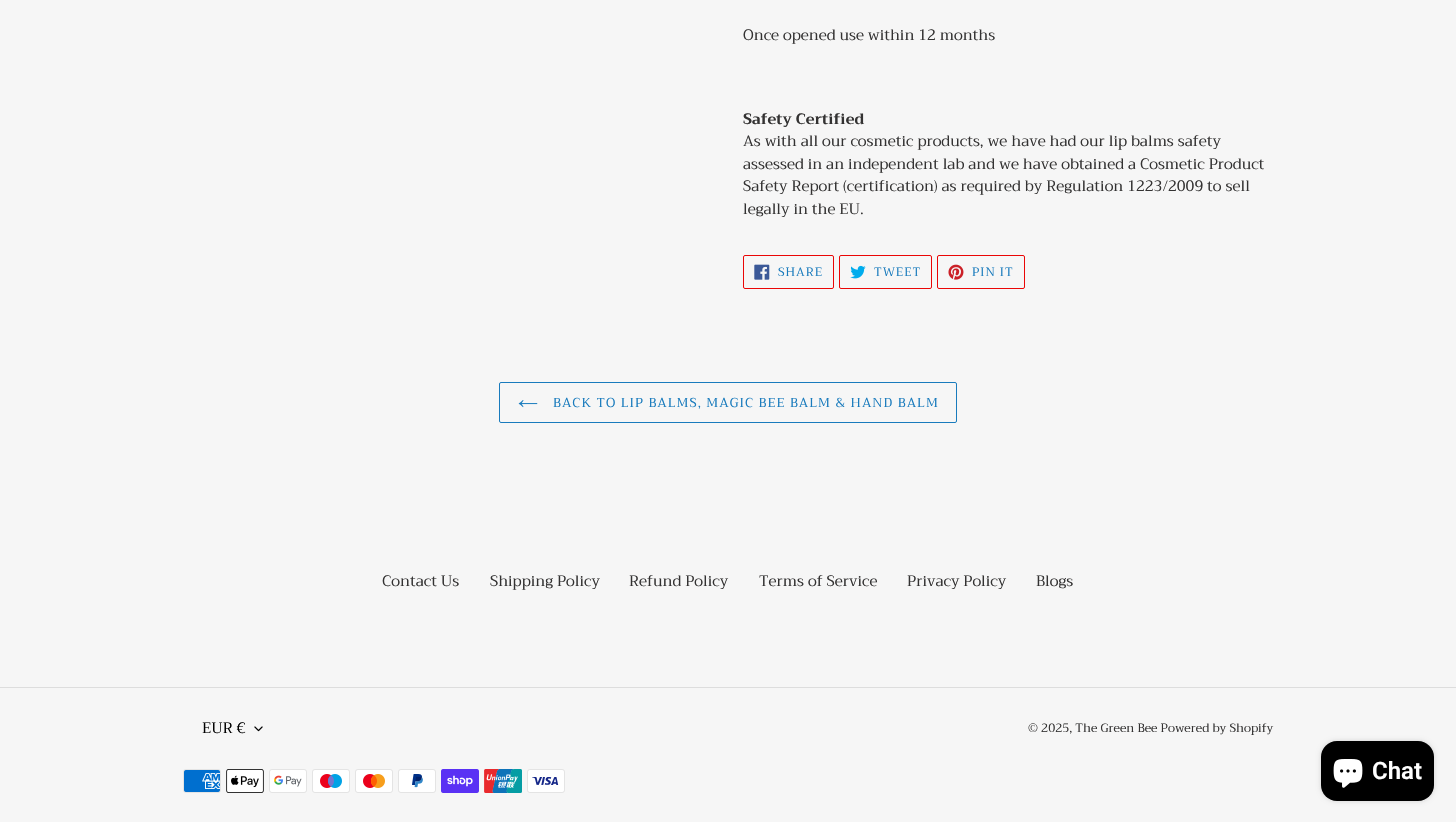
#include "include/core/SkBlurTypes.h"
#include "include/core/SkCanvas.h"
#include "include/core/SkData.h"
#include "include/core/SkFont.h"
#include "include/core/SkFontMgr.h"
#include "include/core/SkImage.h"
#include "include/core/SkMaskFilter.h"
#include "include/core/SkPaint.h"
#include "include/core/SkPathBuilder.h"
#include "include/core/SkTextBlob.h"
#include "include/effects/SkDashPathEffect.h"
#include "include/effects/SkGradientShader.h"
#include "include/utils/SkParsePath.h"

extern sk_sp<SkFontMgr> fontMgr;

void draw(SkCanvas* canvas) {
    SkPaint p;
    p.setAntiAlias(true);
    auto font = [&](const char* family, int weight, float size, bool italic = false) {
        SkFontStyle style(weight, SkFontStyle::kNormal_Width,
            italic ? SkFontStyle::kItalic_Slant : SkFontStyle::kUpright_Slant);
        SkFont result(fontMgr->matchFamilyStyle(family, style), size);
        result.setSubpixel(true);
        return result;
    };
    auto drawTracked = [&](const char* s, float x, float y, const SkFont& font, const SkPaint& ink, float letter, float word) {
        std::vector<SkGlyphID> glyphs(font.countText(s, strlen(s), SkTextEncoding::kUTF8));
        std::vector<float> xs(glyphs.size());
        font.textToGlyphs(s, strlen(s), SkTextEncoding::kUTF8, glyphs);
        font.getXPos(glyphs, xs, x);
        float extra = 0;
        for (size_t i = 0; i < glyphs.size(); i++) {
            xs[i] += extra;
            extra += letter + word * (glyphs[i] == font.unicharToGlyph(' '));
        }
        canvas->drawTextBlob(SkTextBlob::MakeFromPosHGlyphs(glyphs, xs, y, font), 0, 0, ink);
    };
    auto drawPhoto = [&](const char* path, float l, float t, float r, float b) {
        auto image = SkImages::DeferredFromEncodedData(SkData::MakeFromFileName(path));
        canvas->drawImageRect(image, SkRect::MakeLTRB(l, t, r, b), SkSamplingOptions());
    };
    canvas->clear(0xFFF6F6F6);
    auto font1 = font("Trirong", 400, 15);
    p.setColor(0xFF333232);
    canvas->drawString("Once opened use within 12 months", 743, 40, font1, p);
    auto font2 = font("Trirong", 700, 15);
    canvas->drawString("Safety Certified", 743, 124, font2, p);
    {
        const struct { const char* s; float x, y; } items[] = {
            {"As with all our cosmetic products, we have had our lip balms safety", 743, 146},
            {"assessed in an independent lab and we have obtained a Cosmetic Product", 743, 169},
            {"Safety Report (certification) as required by Regulation 1223/2009 to sell", 743, 191},
            {"legally in the EU.", 743, 214},
        };
        for (auto [s, x, y] : items) {
            canvas->drawString(s, x, y, font1, p);
        }
    }
    p.setStyle(SkPaint::kStroke_Style);
    p.setStrokeWidth(1);
    p.setColor(0xFFEA0606);
    canvas->drawRoundRect(SkRect::MakeLTRB(743.5f, 255.5f, 833.5f, 288.5f), 1.5f, 1.5f, p);
    drawPhoto("media/1.png", 754, 264, 770, 280);
    auto font3 = font("Trirong", 400, 12);
    p.setStyle(SkPaint::kFill_Style);
    p.setColor(0xFF197BBD);
    drawTracked("SHARE", 778, 276, font3, p, 1, 0);
    p.setStyle(SkPaint::kStroke_Style);
    p.setColor(0xFFEA0606);
    canvas->drawRoundRect(SkRect::MakeLTRB(839.5f, 255.5f, 931.5f, 288.5f), 1.5f, 1.5f, p);
    drawPhoto("media/2.png", 850, 265, 866, 279);
    p.setStyle(SkPaint::kFill_Style);
    p.setColor(0xFF197BBD);
    drawTracked("TWEET", 874, 276, font3, p, 1, 0);
    p.setStyle(SkPaint::kStroke_Style);
    p.setColor(0xFFEA0606);
    canvas->drawRoundRect(SkRect::MakeLTRB(937.5f, 255.5f, 1024.5f, 288.5f), 1.5f, 1.5f, p);
    drawPhoto("media/3.png", 948, 264, 964, 280);
    p.setStyle(SkPaint::kFill_Style);
    p.setColor(0xFF197BBD);
    drawTracked("PIN IT", 972, 276, font3, p, 1, 0);
    p.setStyle(SkPaint::kStroke_Style);
    canvas->drawRoundRect(SkRect::MakeLTRB(499.5f, 382.5f, 956.5f, 422.5f), 1.5f, 1.5f, p);
    drawPhoto("media/4.png", 518, 400, 538, 408);
    auto font4 = font("Trirong", 400, 13);
    p.setStyle(SkPaint::kFill_Style);
    drawTracked("BACK TO LIP BALMS, MAGIC BEE BALM & HAND BALM", 553, 407, font4, p, 1.05f, 0);
    p.setColor(0xFF333232);
    {
        const struct { const char* s; float x, y; } items[] = {
            {"Contact Us", 382, 586},
            {"Shipping Policy", 490, 586},
            {"Refund Policy", 629, 586},
            {"Terms of Service", 759, 586},
            {"Privacy Policy", 907, 586},
            {"Blogs", 1036, 586},
        };
        for (auto [s, x, y] : items) {
            canvas->drawString(s, x, y, font1, p);
        }
    }
    p.setColor(0xFFDDDDDD);
    canvas->drawRect(SkRect::MakeLTRB(0, 687, 1456, 688), p);
    drawPhoto("media/5.png", 254, 726, 263, 732);
    p.setColor(0xFF000000);
    canvas->drawString("EUR €", 202, 733, font1, p);
    p.setColor(0xFF333232);
    canvas->drawString("© 2025, The Green Bee Powered by Shopify", 1028, 732, font3, p);
    drawPhoto("media/6.png", 183, 769, 221, 793);
    drawPhoto("media/7.png", 226, 769, 264, 793);
    drawPhoto("media/8.png", 269, 769, 307, 793);
    drawPhoto("media/9.png", 312, 769, 350, 793);
    drawPhoto("media/10.png", 355, 769, 393, 793);
    drawPhoto("media/11.png", 398, 769, 436, 793);
    drawPhoto("media/12.png", 441, 769, 479, 793);
    drawPhoto("media/13.png", 484, 769, 522, 793);
    drawPhoto("media/14.png", 527, 769, 565, 793);
    p.setColor(0x26000000);
    p.setMaskFilter(SkMaskFilter::MakeBlur(kNormal_SkBlurStyle, 2.5f));
    canvas->drawRoundRect(SkRect::MakeLTRB(1321, 741, 1434, 801), 16, 16, p);
    p.setMaskFilter(nullptr);
    p.setColor(0xFF000000);
    canvas->drawRoundRect(SkRect::MakeLTRB(1321, 741, 1434, 801), 16, 16, p);
    drawPhoto("media/15.png", 1333, 759, 1363, 788);
    auto font5 = font("Roboto", 600, 24);
    p.setColor(0xFFFFFFFF);
    canvas->drawString("Chat", 1372, 779, font5, p);
}
